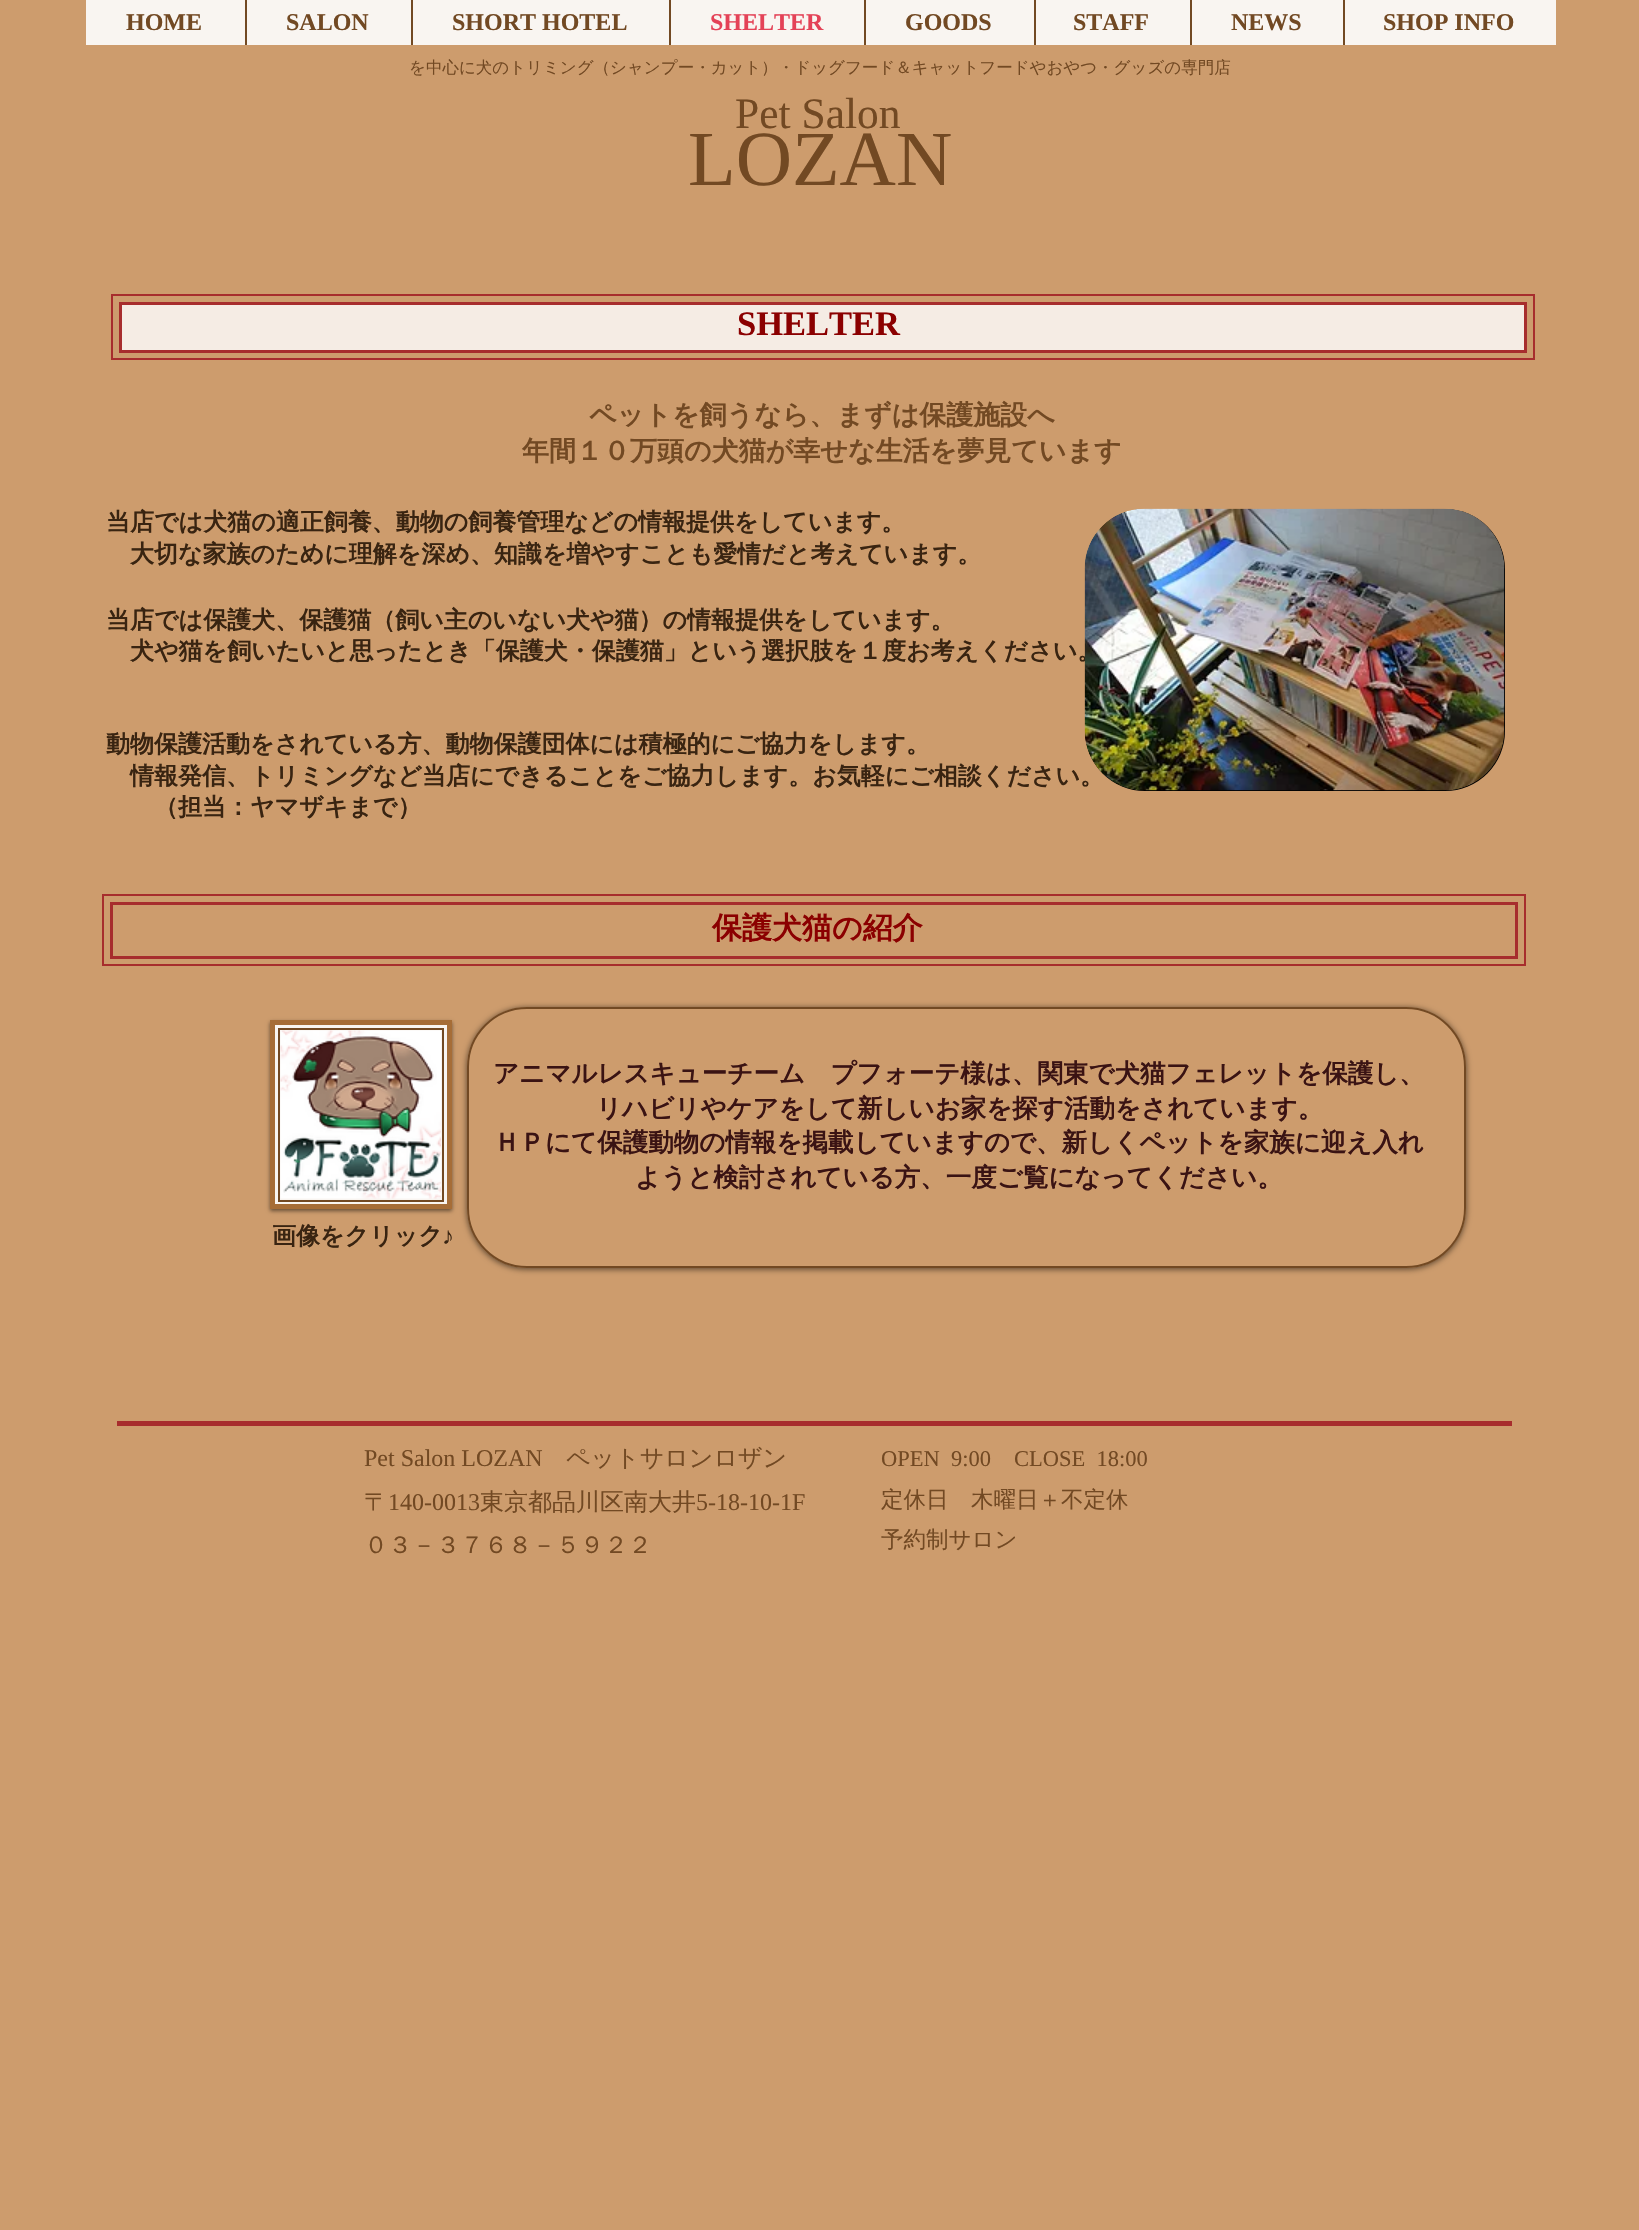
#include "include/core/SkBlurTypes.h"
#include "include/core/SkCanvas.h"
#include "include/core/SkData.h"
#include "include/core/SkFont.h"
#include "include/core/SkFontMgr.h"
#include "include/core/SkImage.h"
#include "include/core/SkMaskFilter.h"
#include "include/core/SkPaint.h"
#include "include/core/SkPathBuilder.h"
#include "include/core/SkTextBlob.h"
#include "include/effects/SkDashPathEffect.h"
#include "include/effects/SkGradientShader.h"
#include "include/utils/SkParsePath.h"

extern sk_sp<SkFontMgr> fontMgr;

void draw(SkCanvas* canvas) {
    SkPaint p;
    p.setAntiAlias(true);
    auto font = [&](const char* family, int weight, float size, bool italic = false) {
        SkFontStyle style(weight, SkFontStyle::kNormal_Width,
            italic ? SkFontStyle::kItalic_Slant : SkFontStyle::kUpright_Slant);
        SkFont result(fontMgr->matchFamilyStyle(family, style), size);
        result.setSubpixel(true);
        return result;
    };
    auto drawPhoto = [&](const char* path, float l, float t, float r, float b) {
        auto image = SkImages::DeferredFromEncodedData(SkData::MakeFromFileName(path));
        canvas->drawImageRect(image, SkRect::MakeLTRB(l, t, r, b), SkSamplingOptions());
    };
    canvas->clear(0xFFCD9C6D);
    p.setColor(0xFFF9F5F1);
    canvas->drawRect(SkRect::MakeLTRB(86, 0, 1556, 45), p);
    auto font1 = font("Liberation Serif", 700, 24);
    p.setColor(0xFF724923);
    canvas->drawString("HOME", 126, 30, font1, p);
    canvas->drawRect(SkRect::MakeLTRB(245, 0, 247, 45), p);
    canvas->drawString("SALON", 286, 30, font1, p);
    canvas->drawRect(SkRect::MakeLTRB(411, 0, 413, 45), p);
    canvas->drawString("SHORT HOTEL", 452, 30, font1, p);
    canvas->drawRect(SkRect::MakeLTRB(669, 0, 671, 45), p);
    p.setColor(0xFFE44257);
    canvas->drawString("SHELTER", 710, 30, font1, p);
    p.setColor(0xFF724923);
    canvas->drawRect(SkRect::MakeLTRB(864, 0, 866, 45), p);
    canvas->drawString("GOODS", 905, 30, font1, p);
    canvas->drawRect(SkRect::MakeLTRB(1034, 0, 1036, 45), p);
    canvas->drawString("STAFF", 1073, 30, font1, p);
    canvas->drawRect(SkRect::MakeLTRB(1190, 0, 1192, 45), p);
    canvas->drawString("NEWS", 1231, 30, font1, p);
    canvas->drawRect(SkRect::MakeLTRB(1343, 0, 1345, 45), p);
    canvas->drawString("SHOP INFO", 1383, 30, font1, p);
    auto font2 = font("WenQuanYi Zen Hei", 500, 16.5f);
    canvas->drawString("を中心に犬のトリミング（シャンプー・カット）・ドッグフード＆キャットフードやおやつ・グッズの専門店", 409, 73, font2, p);
    auto font3 = font("Liberation Serif", 400, 43.5f);
    canvas->drawString("Pet Salon", 735, 128, font3, p);
    auto font4 = font("Liberation Serif", 400, 78);
    canvas->drawString("LOZAN", 688, 185, font4, p);
    p.setStyle(SkPaint::kStroke_Style);
    p.setStrokeWidth(2);
    p.setColor(0xFFA72D2D);
    canvas->drawRect(SkRect::MakeLTRB(112, 295, 1534, 359), p);
    p.setStyle(SkPaint::kFill_Style);
    p.setColor(0xFFF5ECE4);
    canvas->drawRect(SkRect::MakeLTRB(120.5f, 303.5f, 1525.5f, 351.5f), p);
    p.setStyle(SkPaint::kStroke_Style);
    p.setStrokeWidth(3);
    p.setColor(0xFFA72D2D);
    canvas->drawRect(SkRect::MakeLTRB(120.5f, 303.5f, 1525.5f, 351.5f), p);
    auto font5 = font("Liberation Serif", 700, 34.5f);
    p.setStyle(SkPaint::kFill_Style);
    p.setColor(0xFF8B0000);
    canvas->drawString("SHELTER", 737, 335, font5, p);
    auto font6 = font("WenQuanYi Zen Hei", 700, 27);
    p.setColor(0xFF724923);
    canvas->drawString("ペットを飼うなら、まずは保護施設へ", 589, 424, font6, p);
    canvas->drawString("年間１０万頭の犬猫が幸せな生活を夢見ています", 522, 460, font6, p);
    auto font7 = font("WenQuanYi Zen Hei", 700, 24);
    p.setColor(0xFF392411);
    {
        const struct { const char* s; float x, y; } items[] = {
            {"当店では犬猫の適正飼養、動物の飼養管理などの情報提供をしています。", 106, 530},
            {"大切な家族のために理解を深め、知識を増やすことも愛情だと考えています。", 130, 562},
            {"情報発信、トリミングなど当店にできることをご協力します。お気軽にご相談ください。", 130, 784},
        };
        for (auto [s, x, y] : items) {
            canvas->drawString(s, x, y, font7, p);
        }
    }
    p.setColor(0xFF000000);
    canvas->drawRoundRect(SkRect::MakeLTRB(1085, 509, 1505, 791), 60, 60, p);
    p.setColor(0xFF392411);
    canvas->drawString("犬や猫を飼いたいと思ったとき「保護犬・保護猫」という選択肢を１度お考えください。", 130, 659, font7, p);
    drawPhoto("media/1.png", 1084, 508, 1505, 791);
    {
        const struct { const char* s; float x, y; } items[] = {
            {"当店では保護犬、保護猫（飼い主のいない犬や猫）の情報提供をしています。", 106, 628},
            {"動物保護活動をされている方、動物保護団体には積極的にご協力をします。", 106, 752},
            {"（担当：ヤマザキまで）", 154, 815},
        };
        for (auto [s, x, y] : items) {
            canvas->drawString(s, x, y, font7, p);
        }
    }
    p.setStyle(SkPaint::kStroke_Style);
    p.setStrokeWidth(2);
    p.setColor(0xFFA72D2D);
    canvas->drawRect(SkRect::MakeLTRB(103, 895, 1525, 965), p);
    p.setStrokeWidth(3);
    canvas->drawRect(SkRect::MakeLTRB(111.5f, 903.5f, 1516.5f, 957.5f), p);
    auto font8 = font("WenQuanYi Zen Hei", 700, 30);
    p.setStyle(SkPaint::kFill_Style);
    p.setColor(0xFF8B0000);
    canvas->drawString("保護犬猫の紹介", 712, 938, font8, p);
    p.setColor(0x80000000);
    p.setMaskFilter(SkMaskFilter::MakeBlur(kNormal_SkBlurStyle, 2));
    canvas->drawRect(SkRect::MakeLTRB(270, 1022, 452, 1211), p);
    p.setMaskFilter(nullptr);
    p.setColor(0xFFF9F5F1);
    canvas->drawRect(SkRect::MakeLTRB(272.5f, 1022.5f, 449.5f, 1206.5f), p);
    p.setStyle(SkPaint::kStroke_Style);
    p.setStrokeWidth(5);
    p.setColor(0xFFA66D37);
    canvas->drawRect(SkRect::MakeLTRB(272.5f, 1022.5f, 449.5f, 1206.5f), p);
    drawPhoto("media/2.png", 280, 1030, 441, 1199);
    p.setStrokeWidth(2);
    p.setColor(0xFF724923);
    canvas->drawRect(SkRect::MakeLTRB(279, 1029, 443, 1201), p);
    canvas->save();
    canvas->clipPath(SkPathBuilder(SkPathFillType::kEvenOdd).moveTo(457, 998).lineTo(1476, 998).lineTo(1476, 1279).lineTo(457, 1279).close().moveTo(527, 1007).lineTo(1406, 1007).cubicTo(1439, 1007, 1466, 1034, 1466, 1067).lineTo(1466, 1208).cubicTo(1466, 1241, 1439, 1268, 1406, 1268).lineTo(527, 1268).cubicTo(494, 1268, 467, 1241, 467, 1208).lineTo(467, 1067).cubicTo(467, 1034, 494, 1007, 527, 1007).close().detach(), true);
    p.setStyle(SkPaint::kFill_Style);
    p.setColor(0x99000000);
    p.setMaskFilter(SkMaskFilter::MakeBlur(kNormal_SkBlurStyle, 3));
    canvas->drawRoundRect(SkRect::MakeLTRB(467, 1008, 1466, 1269), 60, 60, p);
    p.setMaskFilter(nullptr);
    canvas->restore();
    p.setStyle(SkPaint::kStroke_Style);
    p.setColor(0xFF724923);
    canvas->drawRoundRect(SkRect::MakeLTRB(468, 1008, 1465, 1267), 59, 59, p);
    auto font9 = font("WenQuanYi Zen Hei", 700, 25.5f);
    p.setStyle(SkPaint::kFill_Style);
    p.setColor(0xFF3A1313);
    {
        const struct { const char* s; float x, y; } items[] = {
            {"アニマルレスキューチーム　プフォーテ様は、関東で犬猫フェレットを保護し、", 493, 1082},
            {"リハビリやケアをして新しいお家を探す活動をされています。", 596, 1117},
            {"ＨＰにて保護動物の情報を掲載していますので、新しくペットを家族に迎え入れ", 494, 1151},
            {"ようと検討されている方、一度ご覧になってください。", 635, 1186},
        };
        for (auto [s, x, y] : items) {
            canvas->drawString(s, x, y, font9, p);
        }
    }
    p.setColor(0xFF392411);
    canvas->drawString("画像をクリック", 272, 1244, font7, p);
    canvas->drawString("♪", 442, 1244, font1, p);
    p.setColor(0xFFA72D2D);
    canvas->drawRect(SkRect::MakeLTRB(117, 1421, 1512, 1426), p);
    auto font10 = font("Liberation Serif", 400, 24);
    p.setColor(0xFF724923);
    canvas->drawString("Pet Salon LOZAN", 364, 1466, font10, p);
    auto font11 = font("WenQuanYi Zen Hei", 500, 24);
    canvas->drawString("ペットサロンロザン", 566, 1466, font11, p);
    canvas->drawString("〒", 364, 1510, font11, p);
    canvas->drawString("140-0013", 388, 1510, font10, p);
    canvas->drawString("東京都品川区南大井", 480, 1510, font11, p);
    canvas->drawString("5-18-10-1F", 696, 1510, font10, p);
    canvas->drawString("０３－３７６８－５９２２", 364, 1553, font11, p);
    auto font12 = font("Liberation Serif", 400, 22.5f);
    canvas->drawString("OPEN  9:00", 881, 1466, font12, p);
    canvas->drawString("CLOSE  18:00", 1014, 1466, font12, p);
    auto font13 = font("WenQuanYi Zen Hei", 500, 22.5f);
    canvas->drawString("定休日　木曜日＋不定休", 881, 1507, font13, p);
    canvas->drawString("予約制サロン", 881, 1547, font13, p);
}
